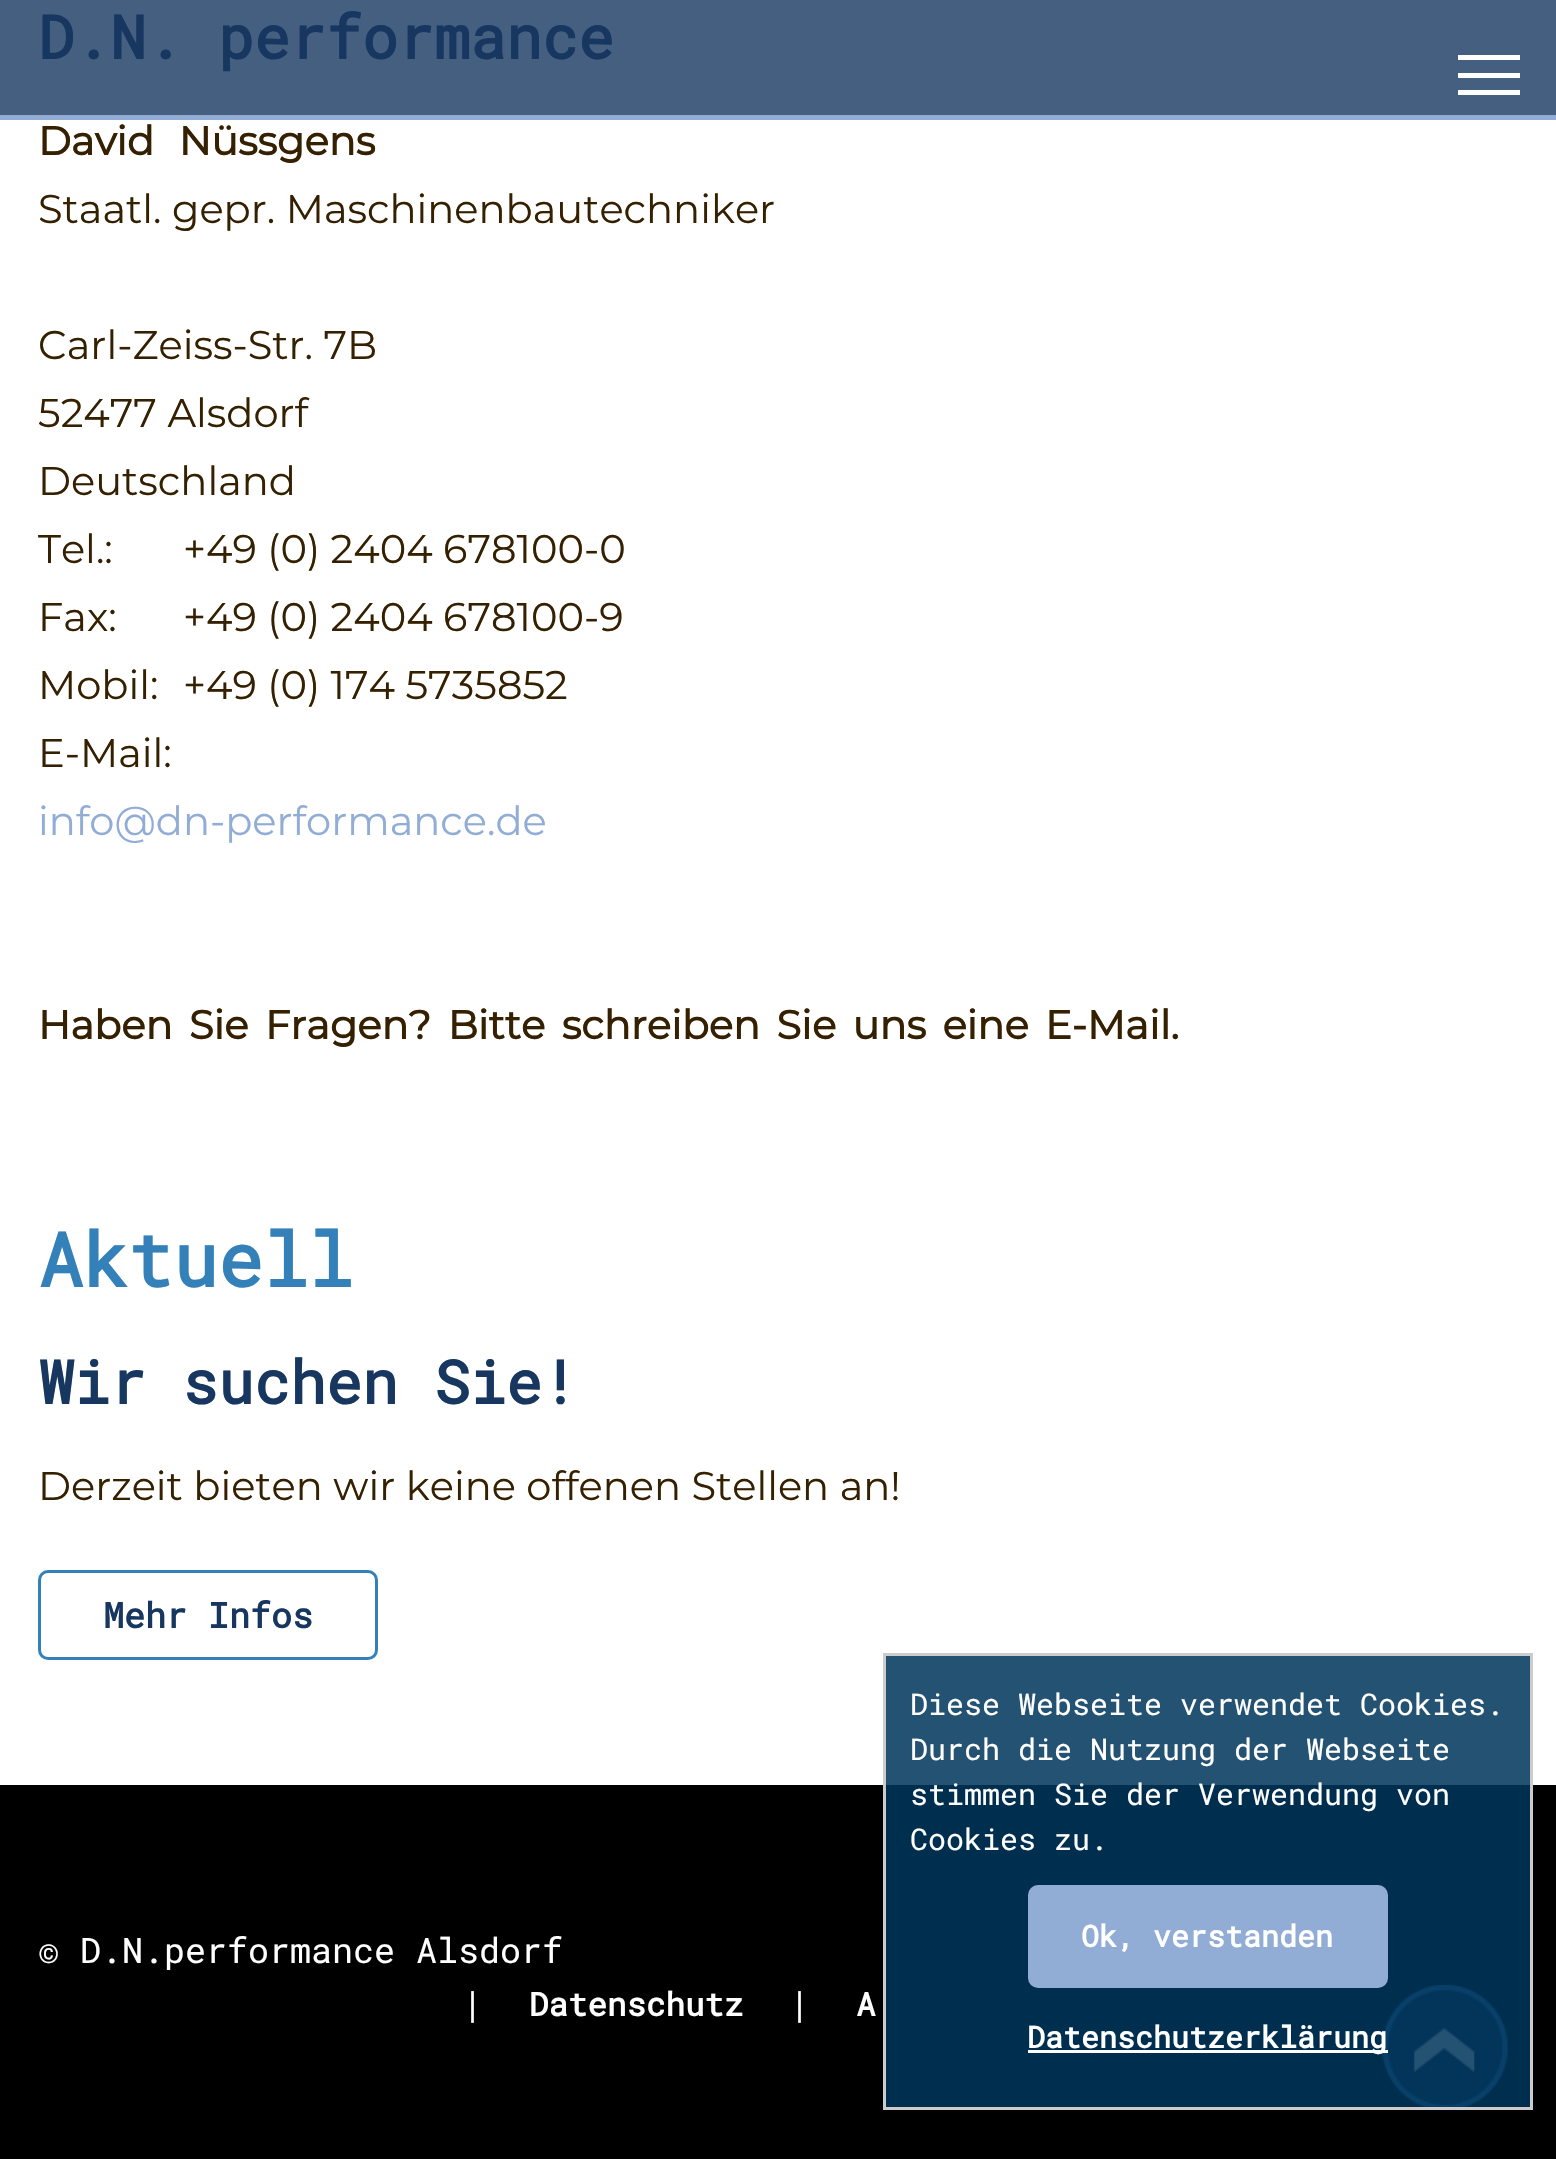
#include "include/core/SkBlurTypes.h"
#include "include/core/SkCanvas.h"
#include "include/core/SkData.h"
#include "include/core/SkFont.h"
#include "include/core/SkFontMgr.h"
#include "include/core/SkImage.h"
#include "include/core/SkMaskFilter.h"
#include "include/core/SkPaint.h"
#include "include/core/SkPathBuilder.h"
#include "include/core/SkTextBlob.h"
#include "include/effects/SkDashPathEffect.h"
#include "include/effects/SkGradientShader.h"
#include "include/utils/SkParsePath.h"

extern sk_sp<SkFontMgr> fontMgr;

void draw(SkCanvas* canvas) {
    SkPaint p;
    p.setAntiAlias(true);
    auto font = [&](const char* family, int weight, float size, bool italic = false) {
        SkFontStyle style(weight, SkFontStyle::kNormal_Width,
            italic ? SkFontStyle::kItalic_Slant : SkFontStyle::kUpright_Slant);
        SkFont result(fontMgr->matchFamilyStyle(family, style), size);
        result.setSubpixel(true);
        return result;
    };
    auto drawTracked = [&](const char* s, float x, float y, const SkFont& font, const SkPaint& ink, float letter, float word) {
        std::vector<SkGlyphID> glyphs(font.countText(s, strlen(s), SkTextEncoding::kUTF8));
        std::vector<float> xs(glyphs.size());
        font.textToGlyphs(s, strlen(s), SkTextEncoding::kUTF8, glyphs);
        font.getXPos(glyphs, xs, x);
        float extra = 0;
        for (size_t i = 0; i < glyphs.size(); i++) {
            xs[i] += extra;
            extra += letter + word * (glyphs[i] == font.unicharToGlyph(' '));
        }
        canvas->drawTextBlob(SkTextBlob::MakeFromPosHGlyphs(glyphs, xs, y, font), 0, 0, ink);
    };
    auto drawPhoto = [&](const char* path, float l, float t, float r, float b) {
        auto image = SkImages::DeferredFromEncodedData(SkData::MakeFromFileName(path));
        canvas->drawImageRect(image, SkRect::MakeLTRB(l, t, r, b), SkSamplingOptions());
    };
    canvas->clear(0xFFFFFFFF);
    p.setColor(0xFF455F80);
    canvas->drawRect(SkRect::MakeLTRB(0, 0, 1556, 115), p);
    auto font1 = font("Roboto Mono", 700, 60);
    p.setColor(0xFF173760);
    canvas->drawString("D.N. performance", 38, 59, font1, p);
    auto font2 = font("Montserrat", 700, 40);
    p.setColor(0xFF352101);
    drawTracked("David Nüssgens", 38, 155, font2, p, 0, 14);
    auto font3 = font("Montserrat", 400, 40);
    {
        const struct { const char* s; float x, y; } items[] = {
            {"Staatl. gepr. Maschinenbautechniker", 38, 223},
            {"Carl-Zeiss-Str. 7B", 38, 359},
            {"52477 Alsdorf", 38, 427},
            {"Deutschland", 38, 495},
            {"Tel.:", 38, 563},
            {"Fax:", 38, 631},
            {"Mobil:", 38, 699},
            {"+49 (0) 2404 678100-0", 183, 563},
            {"+49 (0) 2404 678100-9", 183, 631},
            {"+49 (0) 174 5735852", 183, 699},
            {"E-Mail:", 38, 767},
        };
        for (auto [s, x, y] : items) {
            canvas->drawString(s, x, y, font3, p);
        }
    }
    p.setColor(0xFF91ADD6);
    canvas->drawString("info@dn-performance.de", 38, 835, font3, p);
    p.setColor(0xFF352101);
    drawTracked("Haben Sie Fragen? Bitte schreiben Sie uns eine E-Mail.", 38, 1039, font2, p, 0, 6);
    auto font4 = font("Roboto Mono", 700, 75);
    p.setColor(0xFF3480B9);
    canvas->drawString("Aktuell", 38, 1287, font4, p);
    p.setColor(0xFF173760);
    canvas->drawString("Wir suchen Sie!", 38, 1404, font1, p);
    p.setColor(0xFF352101);
    canvas->drawString("Derzeit bieten wir keine offenen Stellen an!", 38, 1500, font3, p);
    p.setStyle(SkPaint::kStroke_Style);
    p.setStrokeWidth(3);
    p.setColor(0xFF3480B9);
    canvas->drawRoundRect(SkRect::MakeLTRB(39.5f, 1571.5f, 376.5f, 1658.5f), 8.5f, 8.5f, p);
    auto font5 = font("Roboto Mono", 700, 35);
    p.setStyle(SkPaint::kFill_Style);
    p.setColor(0xFF173760);
    canvas->drawString("Mehr Infos", 103, 1628, font5, p);
    p.setColor(0xFF000000);
    canvas->drawRect(SkRect::MakeLTRB(0, 1785, 1556, 2159), p);
    auto font6 = font("Roboto Mono", 400, 35);
    p.setColor(0xFFFFFFFF);
    canvas->drawString("© D.N.performance Alsdorf", 38, 1963, font6, p);
    canvas->drawString("|", 462, 2016, font6, p);
    auto font7 = font("Roboto Mono", 700, 32.5f);
    canvas->drawString("Datenschutz", 529, 2016, font7, p);
    canvas->drawString("|", 789, 2016, font6, p);
    canvas->drawString("A", 856, 2016, font7, p);
    {
        const struct { float l, t, r, b; SkColor color; } items[] = {
            {0, 115, 1556, 120, 0xFF91ADD6},
            {1458, 73, 1520, 78, 0xFFFFFFFF},
            {1458, 55, 1520, 60, 0xFFFFFFFF},
            {1458, 90, 1520, 95, 0xFFFFFFFF},
        };
        for (auto [l, t, r, b, color] : items) {
            p.setColor(color);
            canvas->drawRect(SkRect::MakeLTRB(l, t, r, b), p);
        }
    }
    p.setColor(0xCC173760);
    canvas->drawCircle(1445.5f, 2047.5f, 62.5f, p);
    drawPhoto("media/1.png", 1382, 1985, 1508, 2107);
    p.setColor(0xDB00355C);
    canvas->drawRect(SkRect::MakeLTRB(884.5f, 1654.5f, 1531.5f, 2108.5f), p);
    p.setStyle(SkPaint::kStroke_Style);
    p.setColor(0xFFCCCCCC);
    canvas->drawRect(SkRect::MakeLTRB(884.5f, 1654.5f, 1531.5f, 2108.5f), p);
    auto font8 = font("Roboto Mono", 400, 30);
    p.setStyle(SkPaint::kFill_Style);
    p.setColor(0xFFFFFFFF);
    {
        const struct { const char* s; float x, y; } items[] = {
            {"Diese Webseite verwendet Cookies.", 910, 1715},
            {"Durch die Nutzung der Webseite", 910, 1760},
            {"stimmen Sie der Verwendung von", 910, 1805},
            {"Cookies zu.", 910, 1850},
        };
        for (auto [s, x, y] : items) {
            canvas->drawString(s, x, y, font8, p);
        }
    }
    p.setColor(0xFF91ADD6);
    canvas->drawRoundRect(SkRect::MakeLTRB(1030.5f, 1887.5f, 1385.5f, 1985.5f), 7.5f, 7.5f, p);
    p.setStyle(SkPaint::kStroke_Style);
    p.setStrokeWidth(5);
    canvas->drawRoundRect(SkRect::MakeLTRB(1030.5f, 1887.5f, 1385.5f, 1985.5f), 7.5f, 7.5f, p);
    auto font9 = font("Roboto Mono", 700, 30);
    p.setStyle(SkPaint::kFill_Style);
    p.setColor(0xFFFFFFFF);
    canvas->drawString("Ok, verstanden", 1081, 1947, font9, p);
    canvas->drawRect(SkRect::MakeLTRB(1028, 2050, 1388, 2053), p);
    canvas->drawString("Datenschutzerklärung", 1027, 2048, font9, p);
}
